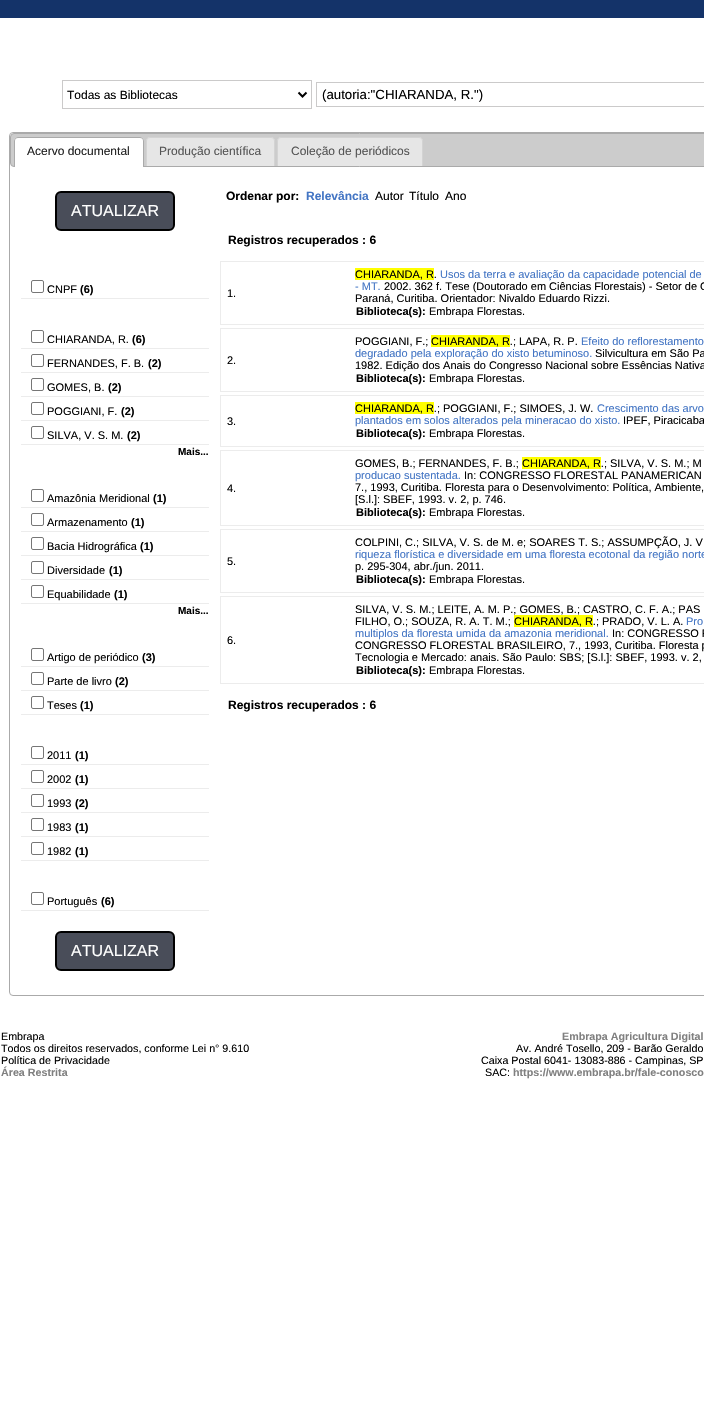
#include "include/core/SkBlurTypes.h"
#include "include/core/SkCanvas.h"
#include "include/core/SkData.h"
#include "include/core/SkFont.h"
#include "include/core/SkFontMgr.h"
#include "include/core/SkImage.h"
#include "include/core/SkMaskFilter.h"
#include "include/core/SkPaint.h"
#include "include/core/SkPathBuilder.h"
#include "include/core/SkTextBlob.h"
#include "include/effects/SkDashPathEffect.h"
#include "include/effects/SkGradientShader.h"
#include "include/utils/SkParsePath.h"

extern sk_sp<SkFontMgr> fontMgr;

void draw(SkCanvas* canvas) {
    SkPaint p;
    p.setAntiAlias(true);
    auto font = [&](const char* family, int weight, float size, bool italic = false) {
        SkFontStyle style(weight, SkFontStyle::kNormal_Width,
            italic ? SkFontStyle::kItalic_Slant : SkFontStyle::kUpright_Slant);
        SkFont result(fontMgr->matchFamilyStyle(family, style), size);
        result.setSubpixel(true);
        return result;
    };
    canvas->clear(0xFFFFFFFF);
    p.setColor(0xFF143369);
    canvas->drawRect(SkRect::MakeLTRB(0, 0, 704, 18), p);
    p.setStyle(SkPaint::kStroke_Style);
    p.setStrokeWidth(1);
    p.setColor(0xFFCBCACA);
    canvas->drawRect(SkRect::MakeLTRB(62.5f, 80.5f, 311.5f, 108.5f), p);
    p.setStrokeWidth(2);
    p.setColor(0xFF000000);
    canvas->drawPath(SkPathBuilder().moveTo(298.5f, 92.5f).lineTo(302.5f, 96.5f).lineTo(306.5f, 92.5f).detach(), p);
    auto font1 = font("Liberation Sans", 400, 12);
    p.setStyle(SkPaint::kFill_Style);
    canvas->drawString("Todas as Bibliotecas", 67, 99, font1, p);
    p.setStyle(SkPaint::kStroke_Style);
    p.setStrokeWidth(1);
    p.setColor(0xFFCBCACA);
    canvas->drawRect(SkRect::MakeLTRB(316.5f, 82.5f, 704.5f, 106.5f), p);
    auto font2 = font("Liberation Sans", 400, 13.25f);
    p.setStyle(SkPaint::kFill_Style);
    p.setColor(0xFF000000);
    canvas->drawString("(autoria:\"CHIARANDA, R.\")", 322, 99, font2, p);
    p.setStyle(SkPaint::kStroke_Style);
    p.setColor(0xFFAAAAAA);
    canvas->drawRoundRect(SkRect::MakeLTRB(9.5f, 132.5f, 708.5f, 995.5f), 3.5f, 3.5f, p);
    p.setStyle(SkPaint::kFill_Style);
    p.setColor(0xFFCCCCCC);
    canvas->drawRoundRect(SkRect::MakeLTRB(10.5f, 133.5f, 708.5f, 166.5f), 3.5f, 3.5f, p);
    p.setStyle(SkPaint::kStroke_Style);
    p.setColor(0xFFAAAAAA);
    canvas->drawRoundRect(SkRect::MakeLTRB(10.5f, 133.5f, 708.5f, 166.5f), 3.5f, 3.5f, p);
    p.setStyle(SkPaint::kFill_Style);
    p.setColor(0xFFFFFFFF);
    canvas->drawPath(SkPathBuilder().moveTo(18, 137).lineTo(140, 137).cubicTo(142, 137, 144, 139, 144, 141).lineTo(144, 167).lineTo(14, 167).lineTo(14, 141).cubicTo(14, 139, 16, 137, 18, 137).close().detach(), p);
    p.setColor(0xFFAAAAAA);
    canvas->drawPath(SkPathBuilder(SkPathFillType::kEvenOdd).moveTo(18, 137).lineTo(140, 137).cubicTo(142, 137, 144, 139, 144, 141).lineTo(144, 167).lineTo(14, 167).lineTo(14, 141).cubicTo(14, 139, 16, 137, 18, 137).close().moveTo(18, 138).lineTo(140, 138).cubicTo(142, 138, 143, 139, 143, 141).lineTo(143, 167).lineTo(15, 167).lineTo(15, 141).cubicTo(15, 139, 16, 138, 18, 138).close().detach(), p);
    p.setColor(0xFF212121);
    canvas->drawString("Acervo documental", 27, 155, font1, p);
    p.setColor(0xFFE6E6E6);
    canvas->drawPath(SkPathBuilder().moveTo(150, 137).lineTo(271, 137).cubicTo(273, 137, 275, 139, 275, 141).lineTo(275, 166).lineTo(146, 166).lineTo(146, 141).cubicTo(146, 139, 148, 137, 150, 137).close().detach(), p);
    p.setColor(0xFFD3D3D3);
    canvas->drawPath(SkPathBuilder(SkPathFillType::kEvenOdd).moveTo(150, 137).lineTo(271, 137).cubicTo(273, 137, 275, 139, 275, 141).lineTo(275, 166).lineTo(146, 166).lineTo(146, 141).cubicTo(146, 139, 148, 137, 150, 137).close().moveTo(150, 138).lineTo(271, 138).cubicTo(273, 138, 274, 139, 274, 141).lineTo(274, 166).lineTo(147, 166).lineTo(147, 141).cubicTo(147, 139, 148, 138, 150, 138).close().detach(), p);
    p.setColor(0xFF555555);
    canvas->drawString("Produção científica", 159, 155, font1, p);
    p.setColor(0xFFE6E6E6);
    canvas->drawPath(SkPathBuilder().moveTo(281, 137).lineTo(419, 137).cubicTo(421, 137, 423, 139, 423, 141).lineTo(423, 166).lineTo(277, 166).lineTo(277, 141).cubicTo(277, 139, 279, 137, 281, 137).close().detach(), p);
    p.setColor(0xFFD3D3D3);
    canvas->drawPath(SkPathBuilder(SkPathFillType::kEvenOdd).moveTo(281, 137).lineTo(419, 137).cubicTo(421, 137, 423, 139, 423, 141).lineTo(423, 166).lineTo(277, 166).lineTo(277, 141).cubicTo(277, 139, 279, 137, 281, 137).close().moveTo(281, 138).lineTo(419, 138).cubicTo(421, 138, 422, 139, 422, 141).lineTo(422, 166).lineTo(278, 166).lineTo(278, 141).cubicTo(278, 139, 279, 138, 281, 138).close().detach(), p);
    p.setColor(0xFF555555);
    canvas->drawString("Coleção de periódicos", 291, 155, font1, p);
    p.setColor(0xFF494D59);
    canvas->drawRoundRect(SkRect::MakeLTRB(56, 192, 174, 230), 5, 5, p);
    p.setStyle(SkPaint::kStroke_Style);
    p.setStrokeWidth(2);
    p.setColor(0xFF000000);
    canvas->drawRoundRect(SkRect::MakeLTRB(56, 192, 174, 230), 5, 5, p);
    auto font3 = font("Liberation Sans", 400, 16);
    p.setStyle(SkPaint::kFill_Style);
    p.setColor(0xFFFFFFFF);
    canvas->drawString("ATUALIZAR", 71, 216, font3, p);
    p.setColor(0xFFECECEC);
    canvas->drawRect(SkRect::MakeLTRB(21, 298, 209, 299), p);
    p.setStyle(SkPaint::kStroke_Style);
    p.setStrokeWidth(1);
    p.setColor(0xFF767676);
    canvas->drawRoundRect(SkRect::MakeLTRB(31.5f, 280.5f, 43.5f, 292.5f), 1.5f, 1.5f, p);
    auto font4 = font("Liberation Sans", 400, 11);
    p.setStyle(SkPaint::kFill_Style);
    p.setColor(0xFF000000);
    canvas->drawString("CNPF", 47, 293, font4, p);
    auto font5 = font("Liberation Sans", 700, 11);
    canvas->drawString("(6)", 80, 293, font5, p);
    p.setColor(0xFFECECEC);
    canvas->drawRect(SkRect::MakeLTRB(21, 348, 209, 349), p);
    p.setStyle(SkPaint::kStroke_Style);
    p.setColor(0xFF767676);
    canvas->drawRoundRect(SkRect::MakeLTRB(31.5f, 330.5f, 43.5f, 342.5f), 1.5f, 1.5f, p);
    p.setStyle(SkPaint::kFill_Style);
    p.setColor(0xFF000000);
    canvas->drawString("CHIARANDA, R.", 47, 343, font4, p);
    canvas->drawString("(6)", 132, 343, font5, p);
    p.setColor(0xFFECECEC);
    canvas->drawRect(SkRect::MakeLTRB(21, 372, 209, 373), p);
    p.setStyle(SkPaint::kStroke_Style);
    p.setColor(0xFF767676);
    canvas->drawRoundRect(SkRect::MakeLTRB(31.5f, 354.5f, 43.5f, 366.5f), 1.5f, 1.5f, p);
    p.setStyle(SkPaint::kFill_Style);
    p.setColor(0xFF000000);
    canvas->drawString("FERNANDES, F. B.", 47, 367, font4, p);
    canvas->drawString("(2)", 148, 367, font5, p);
    p.setColor(0xFFECECEC);
    canvas->drawRect(SkRect::MakeLTRB(21, 396, 209, 397), p);
    p.setStyle(SkPaint::kStroke_Style);
    p.setColor(0xFF767676);
    canvas->drawRoundRect(SkRect::MakeLTRB(31.5f, 378.5f, 43.5f, 390.5f), 1.5f, 1.5f, p);
    p.setStyle(SkPaint::kFill_Style);
    p.setColor(0xFF000000);
    canvas->drawString("GOMES, B.", 47, 391, font4, p);
    canvas->drawString("(2)", 108, 391, font5, p);
    p.setColor(0xFFECECEC);
    canvas->drawRect(SkRect::MakeLTRB(21, 420, 209, 421), p);
    p.setStyle(SkPaint::kStroke_Style);
    p.setColor(0xFF767676);
    canvas->drawRoundRect(SkRect::MakeLTRB(31.5f, 402.5f, 43.5f, 414.5f), 1.5f, 1.5f, p);
    p.setStyle(SkPaint::kFill_Style);
    p.setColor(0xFF000000);
    canvas->drawString("POGGIANI, F.", 47, 415, font4, p);
    canvas->drawString("(2)", 121, 415, font5, p);
    p.setColor(0xFFECECEC);
    canvas->drawRect(SkRect::MakeLTRB(21, 444, 209, 445), p);
    p.setStyle(SkPaint::kStroke_Style);
    p.setColor(0xFF767676);
    canvas->drawRoundRect(SkRect::MakeLTRB(31.5f, 426.5f, 43.5f, 438.5f), 1.5f, 1.5f, p);
    p.setStyle(SkPaint::kFill_Style);
    p.setColor(0xFF000000);
    canvas->drawString("SILVA, V. S. M.", 47, 439, font4, p);
    canvas->drawString("(2)", 127, 439, font5, p);
    auto font6 = font("Liberation Sans", 700, 10);
    canvas->drawString("Mais...", 178, 455, font6, p);
    p.setColor(0xFFECECEC);
    canvas->drawRect(SkRect::MakeLTRB(21, 507, 209, 508), p);
    p.setStyle(SkPaint::kStroke_Style);
    p.setColor(0xFF767676);
    canvas->drawRoundRect(SkRect::MakeLTRB(31.5f, 489.5f, 43.5f, 501.5f), 1.5f, 1.5f, p);
    p.setStyle(SkPaint::kFill_Style);
    p.setColor(0xFF000000);
    canvas->drawString("Amazônia Meridional", 47, 502, font4, p);
    canvas->drawString("(1)", 153, 502, font5, p);
    p.setColor(0xFFECECEC);
    canvas->drawRect(SkRect::MakeLTRB(21, 531, 209, 532), p);
    p.setStyle(SkPaint::kStroke_Style);
    p.setColor(0xFF767676);
    canvas->drawRoundRect(SkRect::MakeLTRB(31.5f, 513.5f, 43.5f, 525.5f), 1.5f, 1.5f, p);
    p.setStyle(SkPaint::kFill_Style);
    p.setColor(0xFF000000);
    canvas->drawString("Armazenamento", 47, 526, font4, p);
    canvas->drawString("(1)", 131, 526, font5, p);
    p.setColor(0xFFECECEC);
    canvas->drawRect(SkRect::MakeLTRB(21, 555, 209, 556), p);
    p.setStyle(SkPaint::kStroke_Style);
    p.setColor(0xFF767676);
    canvas->drawRoundRect(SkRect::MakeLTRB(31.5f, 537.5f, 43.5f, 549.5f), 1.5f, 1.5f, p);
    p.setStyle(SkPaint::kFill_Style);
    p.setColor(0xFF000000);
    canvas->drawString("Bacia Hidrográfica", 47, 550, font4, p);
    canvas->drawString("(1)", 140, 550, font5, p);
    p.setColor(0xFFECECEC);
    canvas->drawRect(SkRect::MakeLTRB(21, 579, 209, 580), p);
    p.setStyle(SkPaint::kStroke_Style);
    p.setColor(0xFF767676);
    canvas->drawRoundRect(SkRect::MakeLTRB(31.5f, 561.5f, 43.5f, 573.5f), 1.5f, 1.5f, p);
    p.setStyle(SkPaint::kFill_Style);
    p.setColor(0xFF000000);
    canvas->drawString("Diversidade", 47, 574, font4, p);
    canvas->drawString("(1)", 109, 574, font5, p);
    p.setColor(0xFFECECEC);
    canvas->drawRect(SkRect::MakeLTRB(21, 603, 209, 604), p);
    p.setStyle(SkPaint::kStroke_Style);
    p.setColor(0xFF767676);
    canvas->drawRoundRect(SkRect::MakeLTRB(31.5f, 585.5f, 43.5f, 597.5f), 1.5f, 1.5f, p);
    p.setStyle(SkPaint::kFill_Style);
    p.setColor(0xFF000000);
    canvas->drawString("Equabilidade", 47, 598, font4, p);
    canvas->drawString("(1)", 114, 598, font5, p);
    canvas->drawString("Mais...", 178, 614, font6, p);
    p.setColor(0xFFECECEC);
    canvas->drawRect(SkRect::MakeLTRB(21, 666, 209, 667), p);
    p.setStyle(SkPaint::kStroke_Style);
    p.setColor(0xFF767676);
    canvas->drawRoundRect(SkRect::MakeLTRB(31.5f, 648.5f, 43.5f, 660.5f), 1.5f, 1.5f, p);
    p.setStyle(SkPaint::kFill_Style);
    p.setColor(0xFF000000);
    canvas->drawString("Artigo de periódico", 47, 661, font4, p);
    canvas->drawString("(3)", 142, 661, font5, p);
    p.setColor(0xFFECECEC);
    canvas->drawRect(SkRect::MakeLTRB(21, 690, 209, 691), p);
    p.setStyle(SkPaint::kStroke_Style);
    p.setColor(0xFF767676);
    canvas->drawRoundRect(SkRect::MakeLTRB(31.5f, 672.5f, 43.5f, 684.5f), 1.5f, 1.5f, p);
    p.setStyle(SkPaint::kFill_Style);
    p.setColor(0xFF000000);
    canvas->drawString("Parte de livro", 47, 685, font4, p);
    canvas->drawString("(2)", 115, 685, font5, p);
    p.setColor(0xFFECECEC);
    canvas->drawRect(SkRect::MakeLTRB(21, 714, 209, 715), p);
    p.setStyle(SkPaint::kStroke_Style);
    p.setColor(0xFF767676);
    canvas->drawRoundRect(SkRect::MakeLTRB(31.5f, 696.5f, 43.5f, 708.5f), 1.5f, 1.5f, p);
    p.setStyle(SkPaint::kFill_Style);
    p.setColor(0xFF000000);
    canvas->drawString("Teses", 47, 709, font4, p);
    canvas->drawString("(1)", 80, 709, font5, p);
    p.setColor(0xFFECECEC);
    canvas->drawRect(SkRect::MakeLTRB(21, 764, 209, 765), p);
    p.setStyle(SkPaint::kStroke_Style);
    p.setColor(0xFF767676);
    canvas->drawRoundRect(SkRect::MakeLTRB(31.5f, 746.5f, 43.5f, 758.5f), 1.5f, 1.5f, p);
    p.setStyle(SkPaint::kFill_Style);
    p.setColor(0xFF000000);
    canvas->drawString("2011", 47, 759, font4, p);
    canvas->drawString("(1)", 75, 759, font5, p);
    p.setColor(0xFFECECEC);
    canvas->drawRect(SkRect::MakeLTRB(21, 788, 209, 789), p);
    p.setStyle(SkPaint::kStroke_Style);
    p.setColor(0xFF767676);
    canvas->drawRoundRect(SkRect::MakeLTRB(31.5f, 770.5f, 43.5f, 782.5f), 1.5f, 1.5f, p);
    p.setStyle(SkPaint::kFill_Style);
    p.setColor(0xFF000000);
    canvas->drawString("2002", 47, 783, font4, p);
    canvas->drawString("(1)", 75, 783, font5, p);
    p.setColor(0xFFECECEC);
    canvas->drawRect(SkRect::MakeLTRB(21, 812, 209, 813), p);
    p.setStyle(SkPaint::kStroke_Style);
    p.setColor(0xFF767676);
    canvas->drawRoundRect(SkRect::MakeLTRB(31.5f, 794.5f, 43.5f, 806.5f), 1.5f, 1.5f, p);
    p.setStyle(SkPaint::kFill_Style);
    p.setColor(0xFF000000);
    canvas->drawString("1993", 47, 807, font4, p);
    canvas->drawString("(2)", 75, 807, font5, p);
    p.setColor(0xFFECECEC);
    canvas->drawRect(SkRect::MakeLTRB(21, 836, 209, 837), p);
    p.setStyle(SkPaint::kStroke_Style);
    p.setColor(0xFF767676);
    canvas->drawRoundRect(SkRect::MakeLTRB(31.5f, 818.5f, 43.5f, 830.5f), 1.5f, 1.5f, p);
    p.setStyle(SkPaint::kFill_Style);
    p.setColor(0xFF000000);
    canvas->drawString("1983", 47, 831, font4, p);
    canvas->drawString("(1)", 75, 831, font5, p);
    p.setColor(0xFFECECEC);
    canvas->drawRect(SkRect::MakeLTRB(21, 860, 209, 861), p);
    p.setStyle(SkPaint::kStroke_Style);
    p.setColor(0xFF767676);
    canvas->drawRoundRect(SkRect::MakeLTRB(31.5f, 842.5f, 43.5f, 854.5f), 1.5f, 1.5f, p);
    p.setStyle(SkPaint::kFill_Style);
    p.setColor(0xFF000000);
    canvas->drawString("1982", 47, 855, font4, p);
    canvas->drawString("(1)", 75, 855, font5, p);
    p.setColor(0xFFECECEC);
    canvas->drawRect(SkRect::MakeLTRB(21, 910, 209, 911), p);
    p.setStyle(SkPaint::kStroke_Style);
    p.setColor(0xFF767676);
    canvas->drawRoundRect(SkRect::MakeLTRB(31.5f, 892.5f, 43.5f, 904.5f), 1.5f, 1.5f, p);
    p.setStyle(SkPaint::kFill_Style);
    p.setColor(0xFF000000);
    canvas->drawString("Português", 47, 905, font4, p);
    canvas->drawString("(6)", 101, 905, font5, p);
    p.setColor(0xFF494D59);
    canvas->drawRoundRect(SkRect::MakeLTRB(56, 932, 174, 970), 5, 5, p);
    p.setStyle(SkPaint::kStroke_Style);
    p.setStrokeWidth(2);
    p.setColor(0xFF000000);
    canvas->drawRoundRect(SkRect::MakeLTRB(56, 932, 174, 970), 5, 5, p);
    p.setStyle(SkPaint::kFill_Style);
    p.setColor(0xFFFFFFFF);
    canvas->drawString("ATUALIZAR", 71, 956, font3, p);
    auto font7 = font("Liberation Sans", 700, 12);
    p.setColor(0xFF000000);
    canvas->drawString("Ordenar por:", 226, 200, font7, p);
    p.setColor(0xFF4375C4);
    canvas->drawString("Relevância", 306, 200, font7, p);
    p.setColor(0xFF000000);
    {
        const struct { const char* s; float x, y; } items[] = {
            {"Autor", 375, 200},
            {"Título", 409, 200},
            {"Ano", 445, 200},
        };
        for (auto [s, x, y] : items) {
            canvas->drawString(s, x, y, font1, p);
        }
    }
    canvas->drawString("Registros recuperados : 6", 228, 244, font7, p);
    p.setStyle(SkPaint::kStroke_Style);
    p.setStrokeWidth(1);
    p.setColor(0xFFECECEC);
    canvas->drawRect(SkRect::MakeLTRB(220.5f, 261.5f, 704.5f, 324.5f), p);
    p.setStyle(SkPaint::kFill_Style);
    p.setColor(0xFF000000);
    canvas->drawString("1.", 227, 297, font4, p);
    p.setColor(0xFFFFFF00);
    canvas->drawRect(SkRect::MakeLTRB(355, 268, 434, 280), p);
    p.setColor(0xFF000000);
    canvas->drawString("CHIARANDA, R.", 355, 278, font4, p);
    p.setColor(0xFF4375C4);
    canvas->drawString("Usos da terra e avaliação da capacidade potencial de", 440, 278, font4, p);
    canvas->drawString("- MT.", 355, 290, font4, p);
    p.setColor(0xFF000000);
    canvas->drawString("2002. 362 f. Tese (Doutorado em Ciências Florestais) - Setor de C", 384, 290, font4, p);
    canvas->drawString("Paraná, Curitiba. Orientador: Nivaldo Eduardo Rizzi.", 355, 302, font4, p);
    canvas->drawString("Biblioteca(s):", 356, 315, font5, p);
    canvas->drawString("Embrapa Florestas.", 429, 315, font4, p);
    p.setStyle(SkPaint::kStroke_Style);
    p.setColor(0xFFECECEC);
    canvas->drawRect(SkRect::MakeLTRB(220.5f, 328.5f, 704.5f, 391.5f), p);
    p.setStyle(SkPaint::kFill_Style);
    p.setColor(0xFF000000);
    canvas->drawString("2.", 227, 364, font4, p);
    canvas->drawString("POGGIANI, F.;", 355, 345, font4, p);
    p.setColor(0xFFFFFF00);
    canvas->drawRect(SkRect::MakeLTRB(431, 335, 510, 347), p);
    p.setColor(0xFF000000);
    canvas->drawString("CHIARANDA, R.; LAPA, R. P.", 431, 345, font4, p);
    p.setColor(0xFF4375C4);
    canvas->drawString("Efeito do reflorestamento", 581, 345, font4, p);
    canvas->drawString("degradado pela exploração do xisto betuminoso.", 355, 357, font4, p);
    p.setColor(0xFF000000);
    canvas->drawString("Silvicultura em São Pa", 595, 357, font4, p);
    canvas->drawString("1982. Edição dos Anais do Congresso Nacional sobre Essências Nativa", 355, 369, font4, p);
    canvas->drawString("Biblioteca(s):", 356, 382, font5, p);
    canvas->drawString("Embrapa Florestas.", 429, 382, font4, p);
    p.setStyle(SkPaint::kStroke_Style);
    p.setColor(0xFFECECEC);
    canvas->drawRect(SkRect::MakeLTRB(220.5f, 395.5f, 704.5f, 446.5f), p);
    p.setStyle(SkPaint::kFill_Style);
    p.setColor(0xFF000000);
    canvas->drawString("3.", 227, 425, font4, p);
    p.setColor(0xFFFFFF00);
    canvas->drawRect(SkRect::MakeLTRB(355, 402, 434, 414), p);
    p.setColor(0xFF000000);
    canvas->drawString("CHIARANDA, R.; POGGIANI, F.; SIMOES, J. W.", 355, 412, font4, p);
    p.setColor(0xFF4375C4);
    canvas->drawString("Crescimento das arvo", 597, 412, font4, p);
    canvas->drawString("plantados em solos alterados pela mineracao do xisto.", 355, 424, font4, p);
    p.setColor(0xFF000000);
    canvas->drawString("IPEF, Piracicaba", 623, 424, font4, p);
    canvas->drawString("Biblioteca(s):", 356, 437, font5, p);
    canvas->drawString("Embrapa Florestas.", 429, 437, font4, p);
    p.setStyle(SkPaint::kStroke_Style);
    p.setColor(0xFFECECEC);
    canvas->drawRect(SkRect::MakeLTRB(220.5f, 450.5f, 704.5f, 525.5f), p);
    p.setStyle(SkPaint::kFill_Style);
    p.setColor(0xFF000000);
    canvas->drawString("4.", 227, 492, font4, p);
    canvas->drawString("GOMES, B.; FERNANDES, F. B.;", 355, 467, font4, p);
    p.setColor(0xFFFFFF00);
    canvas->drawRect(SkRect::MakeLTRB(522, 457, 601, 469), p);
    p.setColor(0xFF000000);
    canvas->drawString("CHIARANDA, R.; SILVA, V. S. M.; M", 522, 467, font4, p);
    p.setColor(0xFF4375C4);
    canvas->drawString("producao sustentada.", 355, 479, font4, p);
    p.setColor(0xFF000000);
    {
        const struct { const char* s; float x, y; } items[] = {
            {"In: CONGRESSO FLORESTAL PANAMERICAN", 464, 479},
            {"7., 1993, Curitiba. Floresta para o Desenvolvimento: Política, Ambiente,", 355, 491},
            {"[S.l.]: SBEF, 1993. v. 2, p. 746.", 355, 503},
        };
        for (auto [s, x, y] : items) {
            canvas->drawString(s, x, y, font4, p);
        }
    }
    canvas->drawString("Biblioteca(s):", 356, 516, font5, p);
    canvas->drawString("Embrapa Florestas.", 429, 516, font4, p);
    p.setStyle(SkPaint::kStroke_Style);
    p.setColor(0xFFECECEC);
    canvas->drawRect(SkRect::MakeLTRB(220.5f, 529.5f, 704.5f, 592.5f), p);
    p.setStyle(SkPaint::kFill_Style);
    p.setColor(0xFF000000);
    canvas->drawString("5.", 227, 565, font4, p);
    canvas->drawString("COLPINI, C.; SILVA, V. S. de M. e; SOARES T. S.; ASSUMPÇÃO, J. V", 355, 546, font4, p);
    p.setColor(0xFF4375C4);
    canvas->drawString("riqueza florística e diversidade em uma floresta ecotonal da região norte", 355, 558, font4, p);
    p.setColor(0xFF000000);
    canvas->drawString("p. 295-304, abr./jun. 2011.", 355, 570, font4, p);
    canvas->drawString("Biblioteca(s):", 356, 583, font5, p);
    canvas->drawString("Embrapa Florestas.", 429, 583, font4, p);
    p.setStyle(SkPaint::kStroke_Style);
    p.setColor(0xFFECECEC);
    canvas->drawRect(SkRect::MakeLTRB(220.5f, 596.5f, 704.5f, 683.5f), p);
    p.setStyle(SkPaint::kFill_Style);
    p.setColor(0xFF000000);
    {
        const struct { const char* s; float x, y; } items[] = {
            {"6.", 227, 644},
            {"SILVA, V. S. M.; LEITE, A. M. P.; GOMES, B.; CASTRO, C. F. A.; PAS", 355, 613},
            {"FILHO, O.; SOUZA, R. A. T. M.;", 355, 625},
        };
        for (auto [s, x, y] : items) {
            canvas->drawString(s, x, y, font4, p);
        }
    }
    p.setColor(0xFFFFFF00);
    canvas->drawRect(SkRect::MakeLTRB(514, 615, 593, 627), p);
    p.setColor(0xFF000000);
    canvas->drawString("CHIARANDA, R.; PRADO, V. L. A.", 514, 625, font4, p);
    p.setColor(0xFF4375C4);
    canvas->drawString("Pro", 686, 625, font4, p);
    canvas->drawString("multiplos da floresta umida da amazonia meridional.", 355, 637, font4, p);
    p.setColor(0xFF000000);
    {
        const struct { const char* s; float x, y; } items[] = {
            {"In: CONGRESSO F", 612, 637},
            {"CONGRESSO FLORESTAL BRASILEIRO, 7., 1993, Curitiba. Floresta p", 355, 649},
            {"Tecnologia e Mercado: anais. São Paulo: SBS; [S.l.]: SBEF, 1993. v. 2,", 355, 661},
        };
        for (auto [s, x, y] : items) {
            canvas->drawString(s, x, y, font4, p);
        }
    }
    canvas->drawString("Biblioteca(s):", 356, 674, font5, p);
    canvas->drawString("Embrapa Florestas.", 429, 674, font4, p);
    canvas->drawString("Registros recuperados : 6", 228, 709, font7, p);
    auto font8 = font("Liberation Sans", 400, 10.7f);
    {
        const struct { const char* s; float x, y; } items[] = {
            {"Embrapa", 1, 1040},
            {"Todos os direitos reservados, conforme Lei n° 9.610", 1, 1052},
            {"Política de Privacidade", 1, 1064},
        };
        for (auto [s, x, y] : items) {
            canvas->drawString(s, x, y, font8, p);
        }
    }
    auto font9 = font("Liberation Sans", 700, 10.7f);
    p.setColor(0xFF808080);
    canvas->drawString("Área Restrita", 1, 1076, font9, p);
    canvas->drawString("Embrapa Agricultura Digital", 562, 1040, font9, p);
    p.setColor(0xFF000000);
    {
        const struct { const char* s; float x, y; } items[] = {
            {"Av. André Tosello, 209 - Barão Geraldo", 516, 1052},
            {"Caixa Postal 6041- 13083-886 - Campinas, SP", 481, 1064},
            {"SAC:", 485, 1076},
        };
        for (auto [s, x, y] : items) {
            canvas->drawString(s, x, y, font8, p);
        }
    }
    p.setColor(0xFF808080);
    canvas->drawString("https://www.embrapa.br/fale-conosco", 513, 1076, font9, p);
}
